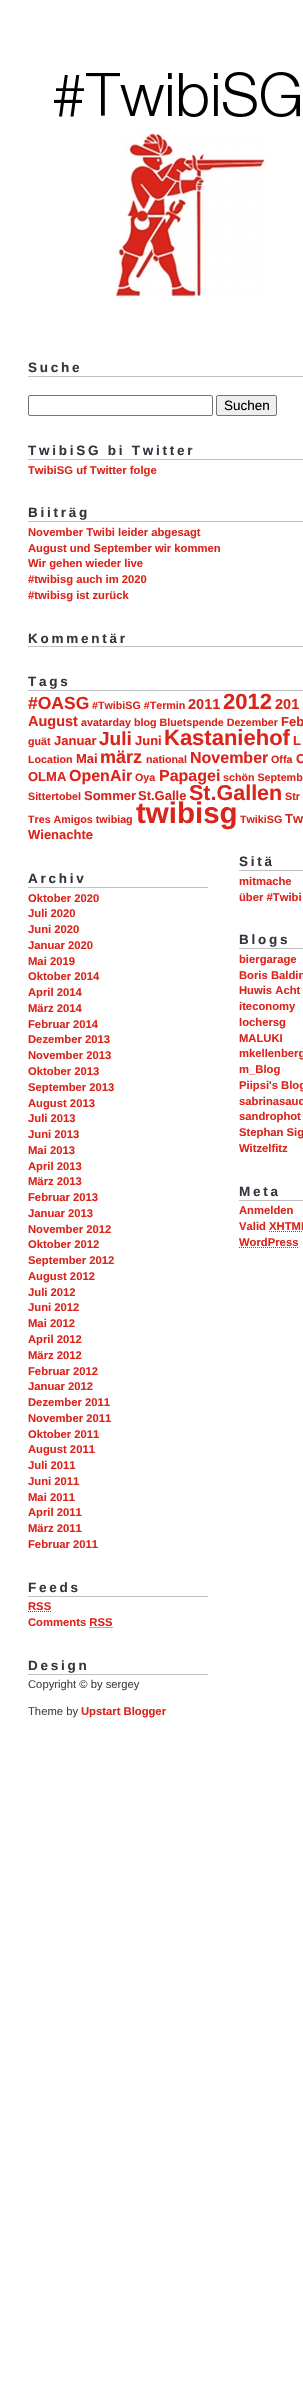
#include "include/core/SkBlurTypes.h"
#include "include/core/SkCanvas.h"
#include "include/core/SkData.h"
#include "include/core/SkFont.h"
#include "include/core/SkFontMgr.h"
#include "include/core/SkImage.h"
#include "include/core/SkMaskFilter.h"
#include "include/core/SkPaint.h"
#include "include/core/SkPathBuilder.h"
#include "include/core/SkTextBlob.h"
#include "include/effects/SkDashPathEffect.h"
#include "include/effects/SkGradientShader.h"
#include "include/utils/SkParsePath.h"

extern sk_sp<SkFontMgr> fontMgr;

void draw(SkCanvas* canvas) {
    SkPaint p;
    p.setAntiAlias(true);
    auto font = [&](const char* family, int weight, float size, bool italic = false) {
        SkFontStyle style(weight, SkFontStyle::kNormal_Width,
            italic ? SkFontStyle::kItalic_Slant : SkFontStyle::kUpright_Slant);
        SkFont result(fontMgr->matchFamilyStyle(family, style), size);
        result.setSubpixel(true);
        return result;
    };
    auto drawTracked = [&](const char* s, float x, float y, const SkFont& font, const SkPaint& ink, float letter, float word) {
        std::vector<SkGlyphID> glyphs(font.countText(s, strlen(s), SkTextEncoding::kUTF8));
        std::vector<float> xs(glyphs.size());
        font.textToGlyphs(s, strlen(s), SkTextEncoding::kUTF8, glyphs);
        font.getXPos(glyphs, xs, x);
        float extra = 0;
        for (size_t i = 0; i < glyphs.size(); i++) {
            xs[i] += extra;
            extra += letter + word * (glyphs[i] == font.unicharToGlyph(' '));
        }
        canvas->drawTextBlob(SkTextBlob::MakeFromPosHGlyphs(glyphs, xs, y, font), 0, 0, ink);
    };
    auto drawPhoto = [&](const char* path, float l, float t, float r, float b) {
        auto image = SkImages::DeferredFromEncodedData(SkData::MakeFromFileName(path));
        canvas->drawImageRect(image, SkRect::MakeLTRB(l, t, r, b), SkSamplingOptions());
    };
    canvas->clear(0xFFFFFFFF);
    drawPhoto("media/1.png", 54, 72, 300, 297);
    p.setColor(0xFFC0C0C0);
    canvas->drawRect(SkRect::MakeLTRB(28, 376, 303, 377), p);
    auto font1 = font("Liberation Sans", 700, 13.5f);
    p.setColor(0xFF34353E);
    drawTracked("Suche", 28, 372, font1, p, 2.75f, 0);
    p.setStyle(SkPaint::kStroke_Style);
    p.setStrokeWidth(1);
    p.setColor(0xFF767676);
    canvas->drawRoundRect(SkRect::MakeLTRB(28.5f, 395.5f, 212.5f, 415.5f), 1.5f, 1.5f, p);
    p.setStyle(SkPaint::kFill_Style);
    p.setColor(0xFFEFEFEF);
    canvas->drawRoundRect(SkRect::MakeLTRB(216.5f, 395.5f, 276.5f, 415.5f), 1.5f, 1.5f, p);
    p.setStyle(SkPaint::kStroke_Style);
    p.setColor(0xFF767676);
    canvas->drawRoundRect(SkRect::MakeLTRB(216.5f, 395.5f, 276.5f, 415.5f), 1.5f, 1.5f, p);
    auto font2 = font("Liberation Sans", 400, 13.5f);
    p.setStyle(SkPaint::kFill_Style);
    p.setColor(0xFF000000);
    canvas->drawString("Suchen", 224, 410, font2, p);
    p.setColor(0xFFC0C0C0);
    canvas->drawRect(SkRect::MakeLTRB(28, 459, 303, 460), p);
    p.setColor(0xFF34353E);
    drawTracked("TwibiSG bi Twitter", 28, 455, font1, p, 2.75f, 0);
    auto font3 = font("Liberation Sans", 700, 11.25f);
    p.setColor(0xFFDA251C);
    canvas->drawString("TwibiSG uf Twitter folge", 28, 474, font3, p);
    p.setColor(0xFFC0C0C0);
    canvas->drawRect(SkRect::MakeLTRB(28, 521, 303, 522), p);
    p.setColor(0xFF34353E);
    drawTracked("Biiträg", 28, 517, font1, p, 2.75f, 0);
    p.setColor(0xFFDA251C);
    {
        const struct { const char* s; float x, y; } items[] = {
            {"November Twibi leider abgesagt", 28, 536},
            {"August und September wir kommen", 28, 552},
            {"Wir gehen wieder live", 28, 567},
            {"#twibisg auch im 2020", 28, 583},
            {"#twibisg ist zurück", 28, 599},
        };
        for (auto [s, x, y] : items) {
            canvas->drawString(s, x, y, font3, p);
        }
    }
    p.setColor(0xFFC0C0C0);
    canvas->drawRect(SkRect::MakeLTRB(28, 646, 303, 647), p);
    p.setColor(0xFF34353E);
    drawTracked("Kommentär", 28, 643, font1, p, 2.75f, 0);
    p.setColor(0xFFC0C0C0);
    canvas->drawRect(SkRect::MakeLTRB(28, 690, 303, 691), p);
    p.setColor(0xFF34353E);
    drawTracked("Tags", 28, 686, font1, p, 2.75f, 0);
    auto font4 = font("Liberation Sans", 700, 17.5f);
    p.setColor(0xFFDA251C);
    canvas->drawString("#OASG", 28, 709, font4, p);
    auto font5 = font("Liberation Sans", 700, 10.7f);
    canvas->drawString("#TwibiSG #Termin", 92, 709, font5, p);
    auto font6 = font("Liberation Sans", 700, 14.5f);
    canvas->drawString("2011", 188, 709, font6, p);
    auto font7 = font("Liberation Sans", 700, 22);
    canvas->drawString("2012", 223, 709, font7, p);
    canvas->drawString("201", 275, 709, font6, p);
    canvas->drawString("August", 28, 726, font6, p);
    canvas->drawString("avatarday blog Bluetspende Dezember", 81, 726, font5, p);
    auto font8 = font("Liberation Sans", 700, 13);
    canvas->drawString("Feb", 281, 726, font8, p);
    canvas->drawString("guät", 28, 745, font5, p);
    canvas->drawString("Januar", 54, 745, font8, p);
    auto font9 = font("Liberation Sans", 700, 19);
    canvas->drawString("Juli", 99, 745, font9, p);
    canvas->drawString("Juni", 135, 745, font8, p);
    canvas->drawString("Kastaniehof", 164, 745, font7, p);
    canvas->drawString("L", 293, 745, font8, p);
    canvas->drawString("Location", 28, 763, font5, p);
    canvas->drawString("Mai", 76, 763, font8, p);
    auto font10 = font("Liberation Sans", 700, 18);
    canvas->drawString("märz", 100, 763, font10, p);
    canvas->drawString("national", 146, 763, font5, p);
    auto font11 = font("Liberation Sans", 700, 16);
    canvas->drawString("November", 190, 763, font11, p);
    canvas->drawString("Offa", 271, 763, font5, p);
    canvas->drawString("O", 296, 763, font8, p);
    canvas->drawString("OLMA", 28, 781, font8, p);
    canvas->drawString("OpenAir", 69, 781, font11, p);
    canvas->drawString("Oya", 135, 781, font5, p);
    canvas->drawString("Papagei", 159, 781, font11, p);
    canvas->drawString("schön Septemb", 223, 781, font5, p);
    canvas->drawString("Sittertobel", 28, 800, font5, p);
    canvas->drawString("Sommer", 84, 800, font8, p);
    canvas->drawString("St.Galle", 138, 800, font8, p);
    auto font12 = font("Liberation Sans", 700, 21.5f);
    canvas->drawString("St.Gallen", 189, 800, font12, p);
    canvas->drawString("Str", 285, 800, font5, p);
    canvas->drawString("Tres Amigos twibiag", 28, 823, font5, p);
    auto font13 = font("Liberation Sans", 700, 29.5f);
    canvas->drawString("twibisg", 136, 823, font13, p);
    canvas->drawString("TwikiSG", 240, 823, font5, p);
    canvas->drawString("Tw", 285, 823, font8, p);
    canvas->drawString("Wienachte", 28, 839, font8, p);
    p.setColor(0xFFC0C0C0);
    canvas->drawRect(SkRect::MakeLTRB(28, 887, 208, 888), p);
    p.setColor(0xFF34353E);
    drawTracked("Archiv", 28, 883, font1, p, 2.75f, 0);
    p.setColor(0xFFDA251C);
    {
        const struct { const char* s; float x, y; } items[] = {
            {"Oktober 2020", 28, 902},
            {"Juli 2020", 28, 917},
            {"Juni 2020", 28, 933},
            {"Januar 2020", 28, 949},
            {"Mai 2019", 28, 965},
            {"Oktober 2014", 28, 980},
            {"April 2014", 28, 996},
            {"März 2014", 28, 1012},
            {"Februar 2014", 28, 1028},
            {"Dezember 2013", 28, 1043},
            {"November 2013", 28, 1059},
            {"Oktober 2013", 28, 1075},
            {"September 2013", 28, 1091},
            {"August 2013", 28, 1107},
            {"Juli 2013", 28, 1122},
            {"Juni 2013", 28, 1138},
            {"Mai 2013", 28, 1154},
            {"April 2013", 28, 1170},
            {"März 2013", 28, 1185},
            {"Februar 2013", 28, 1201},
            {"Januar 2013", 28, 1217},
            {"November 2012", 28, 1233},
            {"Oktober 2012", 28, 1248},
            {"September 2012", 28, 1264},
            {"August 2012", 28, 1280},
            {"Juli 2012", 28, 1296},
            {"Juni 2012", 28, 1311},
            {"Mai 2012", 28, 1327},
            {"April 2012", 28, 1343},
            {"März 2012", 28, 1359},
            {"Februar 2012", 28, 1375},
            {"Januar 2012", 28, 1390},
            {"Dezember 2011", 28, 1406},
            {"November 2011", 28, 1422},
            {"Oktober 2011", 28, 1438},
            {"August 2011", 28, 1453},
            {"Juli 2011", 28, 1469},
            {"Juni 2011", 28, 1485},
            {"Mai 2011", 28, 1501},
            {"April 2011", 28, 1516},
            {"März 2011", 28, 1532},
            {"Februar 2011", 28, 1548},
        };
        for (auto [s, x, y] : items) {
            canvas->drawString(s, x, y, font3, p);
        }
    }
    p.setColor(0xFFC0C0C0);
    canvas->drawRect(SkRect::MakeLTRB(28, 1596, 208, 1597), p);
    p.setColor(0xFF34353E);
    drawTracked("Feeds", 28, 1592, font1, p, 2.75f, 0);
    p.setColor(0xFFDA251C);
    canvas->drawString("RSS", 28, 1610, font3, p);
    p.setStyle(SkPaint::kStroke_Style);
    p.setPathEffect(SkDashPathEffect::Make({{1, 1}}, 0));
    canvas->drawPath(SkPathBuilder().moveTo(28, 1611.5f).lineTo(51, 1611.5f).detach(), p);
    p.setPathEffect(nullptr);
    p.setStyle(SkPaint::kFill_Style);
    canvas->drawString("Comments RSS", 28, 1626, font3, p);
    p.setStyle(SkPaint::kStroke_Style);
    p.setPathEffect(SkDashPathEffect::Make({{1, 1}}, 0));
    canvas->drawPath(SkPathBuilder().moveTo(89.5f, 1627.5f).lineTo(112.5f, 1627.5f).detach(), p);
    p.setPathEffect(nullptr);
    p.setStyle(SkPaint::kFill_Style);
    p.setColor(0xFFC0C0C0);
    canvas->drawRect(SkRect::MakeLTRB(28, 1674, 208, 1675), p);
    p.setColor(0xFF34353E);
    drawTracked("Design", 28, 1670, font1, p, 2.75f, 0);
    auto font14 = font("Liberation Sans", 400, 11.25f);
    p.setColor(0xFF444444);
    canvas->drawString("Copyright © by sergey", 28, 1688, font14, p);
    canvas->drawString("Theme by", 28, 1715, font14, p);
    p.setColor(0xFFDA251C);
    canvas->drawString("Upstart Blogger", 81, 1715, font3, p);
    p.setColor(0xFFC0C0C0);
    canvas->drawRect(SkRect::MakeLTRB(239, 870, 303, 871), p);
    p.setColor(0xFF34353E);
    drawTracked("Sitä", 239, 866, font1, p, 2.75f, 0);
    p.setColor(0xFFDA251C);
    canvas->drawString("mitmache", 239, 885, font3, p);
    canvas->drawString("über #Twibi", 239, 901, font3, p);
    p.setColor(0xFFC0C0C0);
    canvas->drawRect(SkRect::MakeLTRB(239, 948, 303, 949), p);
    p.setColor(0xFF34353E);
    drawTracked("Blogs", 239, 944, font1, p, 2.75f, 0);
    p.setColor(0xFFDA251C);
    {
        const struct { const char* s; float x, y; } items[] = {
            {"biergarage", 239, 963},
            {"Boris Baldin", 239, 979},
            {"Huwis Acht", 239, 994},
            {"iteconomy", 239, 1010},
            {"lochersg", 239, 1026},
            {"MALUKI", 239, 1042},
            {"mkellenberg", 239, 1057},
            {"m_Blog", 239, 1073},
            {"Piipsi's Blog", 239, 1089},
            {"sabrinasaud", 239, 1105},
            {"sandrophot", 239, 1120},
            {"Stephan Sig", 239, 1136},
            {"Witzelfitz", 239, 1152},
        };
        for (auto [s, x, y] : items) {
            canvas->drawString(s, x, y, font3, p);
        }
    }
    p.setColor(0xFFC0C0C0);
    canvas->drawRect(SkRect::MakeLTRB(239, 1200, 303, 1201), p);
    p.setColor(0xFF34353E);
    drawTracked("Meta", 239, 1196, font1, p, 2.75f, 0);
    p.setColor(0xFFDA251C);
    canvas->drawString("Anmelden", 239, 1214, font3, p);
    canvas->drawString("Valid XHTML", 239, 1230, font3, p);
    p.setStyle(SkPaint::kStroke_Style);
    p.setPathEffect(SkDashPathEffect::Make({{1, 1}}, 0));
    canvas->drawPath(SkPathBuilder().moveTo(269, 1231.5f).lineTo(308, 1231.5f).moveTo(239, 1247.5f).lineTo(298.5f, 1247.5f).detach(), p);
    p.setPathEffect(nullptr);
    p.setStyle(SkPaint::kFill_Style);
    canvas->drawString("WordPress", 239, 1246, font3, p);
}
